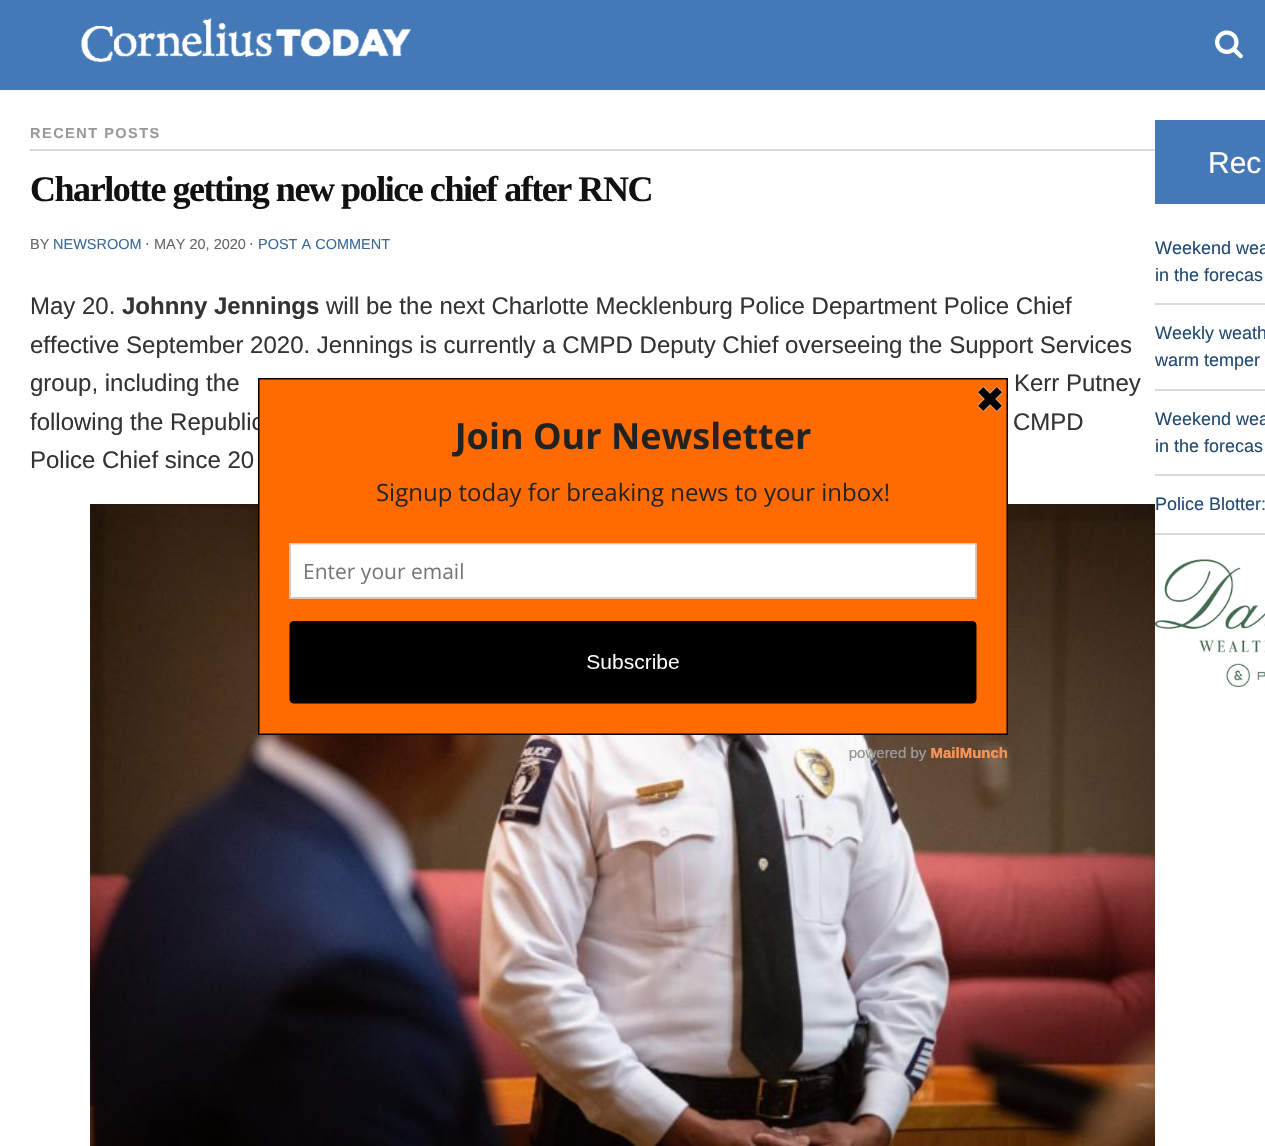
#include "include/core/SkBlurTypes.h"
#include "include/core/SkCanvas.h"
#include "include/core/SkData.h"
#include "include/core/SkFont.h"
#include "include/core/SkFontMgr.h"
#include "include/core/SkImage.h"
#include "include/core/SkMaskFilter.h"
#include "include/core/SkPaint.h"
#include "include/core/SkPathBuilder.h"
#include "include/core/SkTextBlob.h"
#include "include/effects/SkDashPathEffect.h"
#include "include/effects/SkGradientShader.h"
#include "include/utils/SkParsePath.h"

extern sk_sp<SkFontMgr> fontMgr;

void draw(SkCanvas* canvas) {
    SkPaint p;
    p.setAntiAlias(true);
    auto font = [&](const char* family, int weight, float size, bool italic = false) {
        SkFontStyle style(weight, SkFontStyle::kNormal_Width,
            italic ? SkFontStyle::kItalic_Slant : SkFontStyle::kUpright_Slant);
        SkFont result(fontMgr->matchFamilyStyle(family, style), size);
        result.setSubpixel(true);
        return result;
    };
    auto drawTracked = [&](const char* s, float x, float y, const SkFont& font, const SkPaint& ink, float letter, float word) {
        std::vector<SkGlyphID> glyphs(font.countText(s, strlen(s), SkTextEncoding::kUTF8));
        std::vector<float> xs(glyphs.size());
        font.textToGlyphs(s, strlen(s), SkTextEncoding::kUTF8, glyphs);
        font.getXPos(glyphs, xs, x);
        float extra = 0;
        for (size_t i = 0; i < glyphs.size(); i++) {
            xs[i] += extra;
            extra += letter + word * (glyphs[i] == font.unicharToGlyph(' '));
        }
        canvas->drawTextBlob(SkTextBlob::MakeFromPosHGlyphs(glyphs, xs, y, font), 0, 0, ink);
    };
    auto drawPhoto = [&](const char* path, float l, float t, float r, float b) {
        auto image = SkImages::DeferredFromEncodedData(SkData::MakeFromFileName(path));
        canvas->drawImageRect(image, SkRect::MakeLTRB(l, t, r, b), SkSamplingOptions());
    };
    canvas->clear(0xFFFFFFFF);
    p.setColor(0xFF4479B8);
    canvas->drawRect(SkRect::MakeLTRB(0, 0, 1265, 90), p);
    drawPhoto("media/1.png", 81, 18, 411, 63);
    drawPhoto("media/2.png", 1215, 30, 1243, 59);
    p.setColor(0xFFDADADA);
    canvas->drawRect(SkRect::MakeLTRB(30, 149, 1155, 151), p);
    auto font1 = font("Liberation Sans", 700, 14.5f);
    p.setColor(0xFF999999);
    drawTracked("RECENT POSTS", 30, 138, font1, p, 1.5f, 0);
    auto font2 = font("Liberation Serif", 700, 36);
    p.setColor(0xFF111111);
    drawTracked("Charlotte getting new police chief after RNC", 30, 201, font2, p, -1.45f, 0);
    auto font3 = font("Liberation Sans", 400, 14.5f);
    p.setColor(0xFF666666);
    canvas->drawString("BY", 30, 249, font3, p);
    p.setColor(0xFF3A6999);
    canvas->drawString("NEWSROOM", 53, 249, font3, p);
    auto font4 = font("DejaVu Sans", 400, 14.5f);
    p.setColor(0xFF666666);
    canvas->drawString("⋅", 145, 249, font4, p);
    canvas->drawString("MAY 20, 2020", 154, 249, font3, p);
    canvas->drawString("⋅", 249, 249, font4, p);
    p.setColor(0xFF3A6999);
    canvas->drawString("POST A COMMENT", 258, 249, font3, p);
    auto font5 = font("Liberation Sans", 400, 24);
    p.setColor(0xFF333333);
    canvas->drawString("May 20.", 30, 314, font5, p);
    auto font6 = font("Liberation Sans", 700, 24);
    canvas->drawString("Johnny Jennings", 122, 314, font6, p);
    {
        const struct { const char* s; float x, y; } items[] = {
            {"will be the next Charlotte Mecklenburg Police Department Police Chief", 326, 314},
            {"effective September 2020. Jennings is currently a CMPD Deputy Chief overseeing the Support Services", 30, 353},
            {"group, including the", 30, 391},
            {"Kerr Putney", 1014, 391},
            {"following the Republic", 30, 430},
            {"CMPD", 1013, 430},
            {"Police Chief since 20", 30, 468},
        };
        for (auto [s, x, y] : items) {
            canvas->drawString(s, x, y, font5, p);
        }
    }
    drawPhoto("media/3.png", 90, 504, 1155, 1146);
    p.setColor(0xFF4578B7);
    canvas->drawRect(SkRect::MakeLTRB(1155, 120, 1265, 204), p);
    auto font7 = font("Liberation Sans", 400, 30);
    p.setColor(0xFFFFFFFF);
    canvas->drawString("Rec", 1208, 173, font7, p);
    p.setColor(0xFFDADADA);
    canvas->drawRect(SkRect::MakeLTRB(1155, 303, 1265, 305), p);
    auto font8 = font("Liberation Sans", 400, 18);
    p.setColor(0xFF224970);
    canvas->drawString("Weekend wea", 1155, 254, font8, p);
    canvas->drawString("in the forecas", 1155, 281, font8, p);
    p.setColor(0xFFDADADA);
    canvas->drawRect(SkRect::MakeLTRB(1155, 389, 1265, 391), p);
    p.setColor(0xFF224970);
    canvas->drawString("Weekly weath", 1155, 339, font8, p);
    canvas->drawString("warm temper", 1155, 366, font8, p);
    p.setColor(0xFFDADADA);
    canvas->drawRect(SkRect::MakeLTRB(1155, 474, 1265, 476), p);
    p.setColor(0xFF224970);
    canvas->drawString("Weekend wea", 1155, 425, font8, p);
    canvas->drawString("in the forecas", 1155, 452, font8, p);
    p.setColor(0xFFDADADA);
    canvas->drawRect(SkRect::MakeLTRB(1155, 533, 1265, 535), p);
    p.setColor(0xFF224970);
    canvas->drawString("Police Blotter:", 1155, 510, font8, p);
    drawPhoto("media/4.png", 1155, 559, 1265, 687);
    drawPhoto("media/5.png", 258, 378, 1008, 761);
    drawPhoto("media/6.png", 849, 747, 1007, 761);
}
